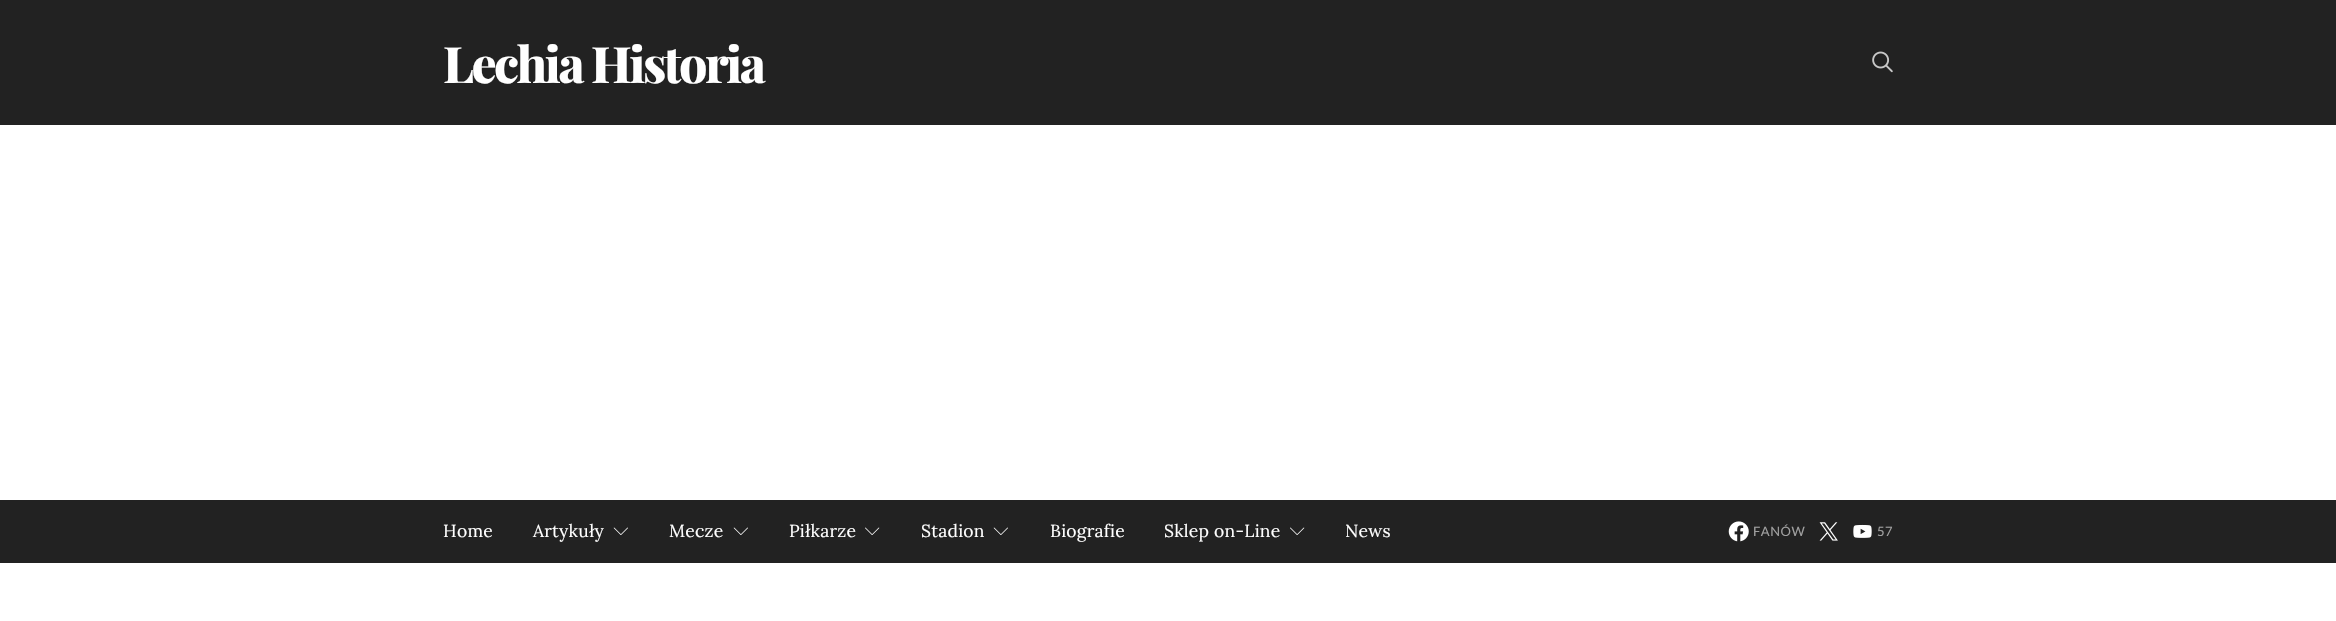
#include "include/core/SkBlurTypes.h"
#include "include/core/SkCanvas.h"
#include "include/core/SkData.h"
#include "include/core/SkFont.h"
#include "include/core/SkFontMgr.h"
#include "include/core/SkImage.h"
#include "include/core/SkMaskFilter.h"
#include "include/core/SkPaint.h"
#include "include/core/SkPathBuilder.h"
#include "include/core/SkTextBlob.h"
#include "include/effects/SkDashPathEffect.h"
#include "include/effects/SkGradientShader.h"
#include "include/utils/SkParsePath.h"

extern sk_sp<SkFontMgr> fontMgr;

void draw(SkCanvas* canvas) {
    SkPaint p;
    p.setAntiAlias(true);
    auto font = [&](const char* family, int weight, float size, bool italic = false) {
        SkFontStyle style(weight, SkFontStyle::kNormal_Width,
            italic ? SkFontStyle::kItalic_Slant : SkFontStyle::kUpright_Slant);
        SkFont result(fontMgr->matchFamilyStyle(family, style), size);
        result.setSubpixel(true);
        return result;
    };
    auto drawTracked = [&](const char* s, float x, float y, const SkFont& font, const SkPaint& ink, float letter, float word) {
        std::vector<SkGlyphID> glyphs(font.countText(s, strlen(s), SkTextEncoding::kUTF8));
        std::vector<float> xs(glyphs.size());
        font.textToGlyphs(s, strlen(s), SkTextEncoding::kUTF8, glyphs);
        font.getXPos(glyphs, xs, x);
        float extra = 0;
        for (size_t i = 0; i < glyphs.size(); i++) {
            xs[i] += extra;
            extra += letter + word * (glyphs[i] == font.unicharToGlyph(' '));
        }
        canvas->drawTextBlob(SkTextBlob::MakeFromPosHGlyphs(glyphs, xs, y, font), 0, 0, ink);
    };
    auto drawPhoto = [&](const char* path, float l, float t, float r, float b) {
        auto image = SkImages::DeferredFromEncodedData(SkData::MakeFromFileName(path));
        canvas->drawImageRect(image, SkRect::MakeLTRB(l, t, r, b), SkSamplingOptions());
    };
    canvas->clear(0xFFFFFFFF);
    p.setColor(0xFF222222);
    canvas->drawRect(SkRect::MakeLTRB(0, 0, 2336, 125), p);
    auto font1 = font("Playfair Display", 800, 50);
    p.setColor(0xFFFFFFFF);
    drawTracked("Lechia Historia", 443, 83, font1, p, -2.5f, 0);
    drawPhoto("media/1.png", 1872, 51, 1893, 73);
    p.setColor(0xFF222222);
    canvas->drawRect(SkRect::MakeLTRB(0, 500, 2336, 563), p);
    auto font2 = font("Lora", 400, 17.5f);
    p.setColor(0xFFFFFFFF);
    drawTracked("Home", 443, 537, font2, p, 0.25f, 0);
    drawTracked("Artykuły", 533, 537, font2, p, 0.25f, 0);
    drawPhoto("media/2.png", 613, 527, 628, 535);
    drawTracked("Mecze", 669, 537, font2, p, 0.25f, 0);
    drawPhoto("media/2.png", 733, 527, 748, 535);
    drawTracked("Piłkarze", 789, 537, font2, p, 0.25f, 0);
    drawPhoto("media/3.png", 865, 527, 880, 535);
    drawTracked("Stadion", 921, 537, font2, p, 0.25f, 0);
    drawPhoto("media/2.png", 993, 527, 1008, 535);
    drawTracked("Biografie", 1050, 537, font2, p, 0.25f, 0);
    drawTracked("Sklep on-Line", 1164, 537, font2, p, 0.25f, 0);
    drawPhoto("media/3.png", 1290, 527, 1305, 535);
    drawTracked("News", 1345, 537, font2, p, 0.25f, 0);
    drawPhoto("media/4.png", 1728, 521, 1749, 542);
    auto font3 = font("Lato", 400, 13);
    p.setColor(0xFFA0A0A0);
    drawTracked("FANÓW", 1753, 536, font3, p, 0.5f, 0);
    drawPhoto("media/5.png", 1819, 522, 1838, 541);
    drawPhoto("media/6.png", 1853, 524, 1872, 538);
    drawTracked("57", 1877, 536, font3, p, 0.5f, 0);
}
